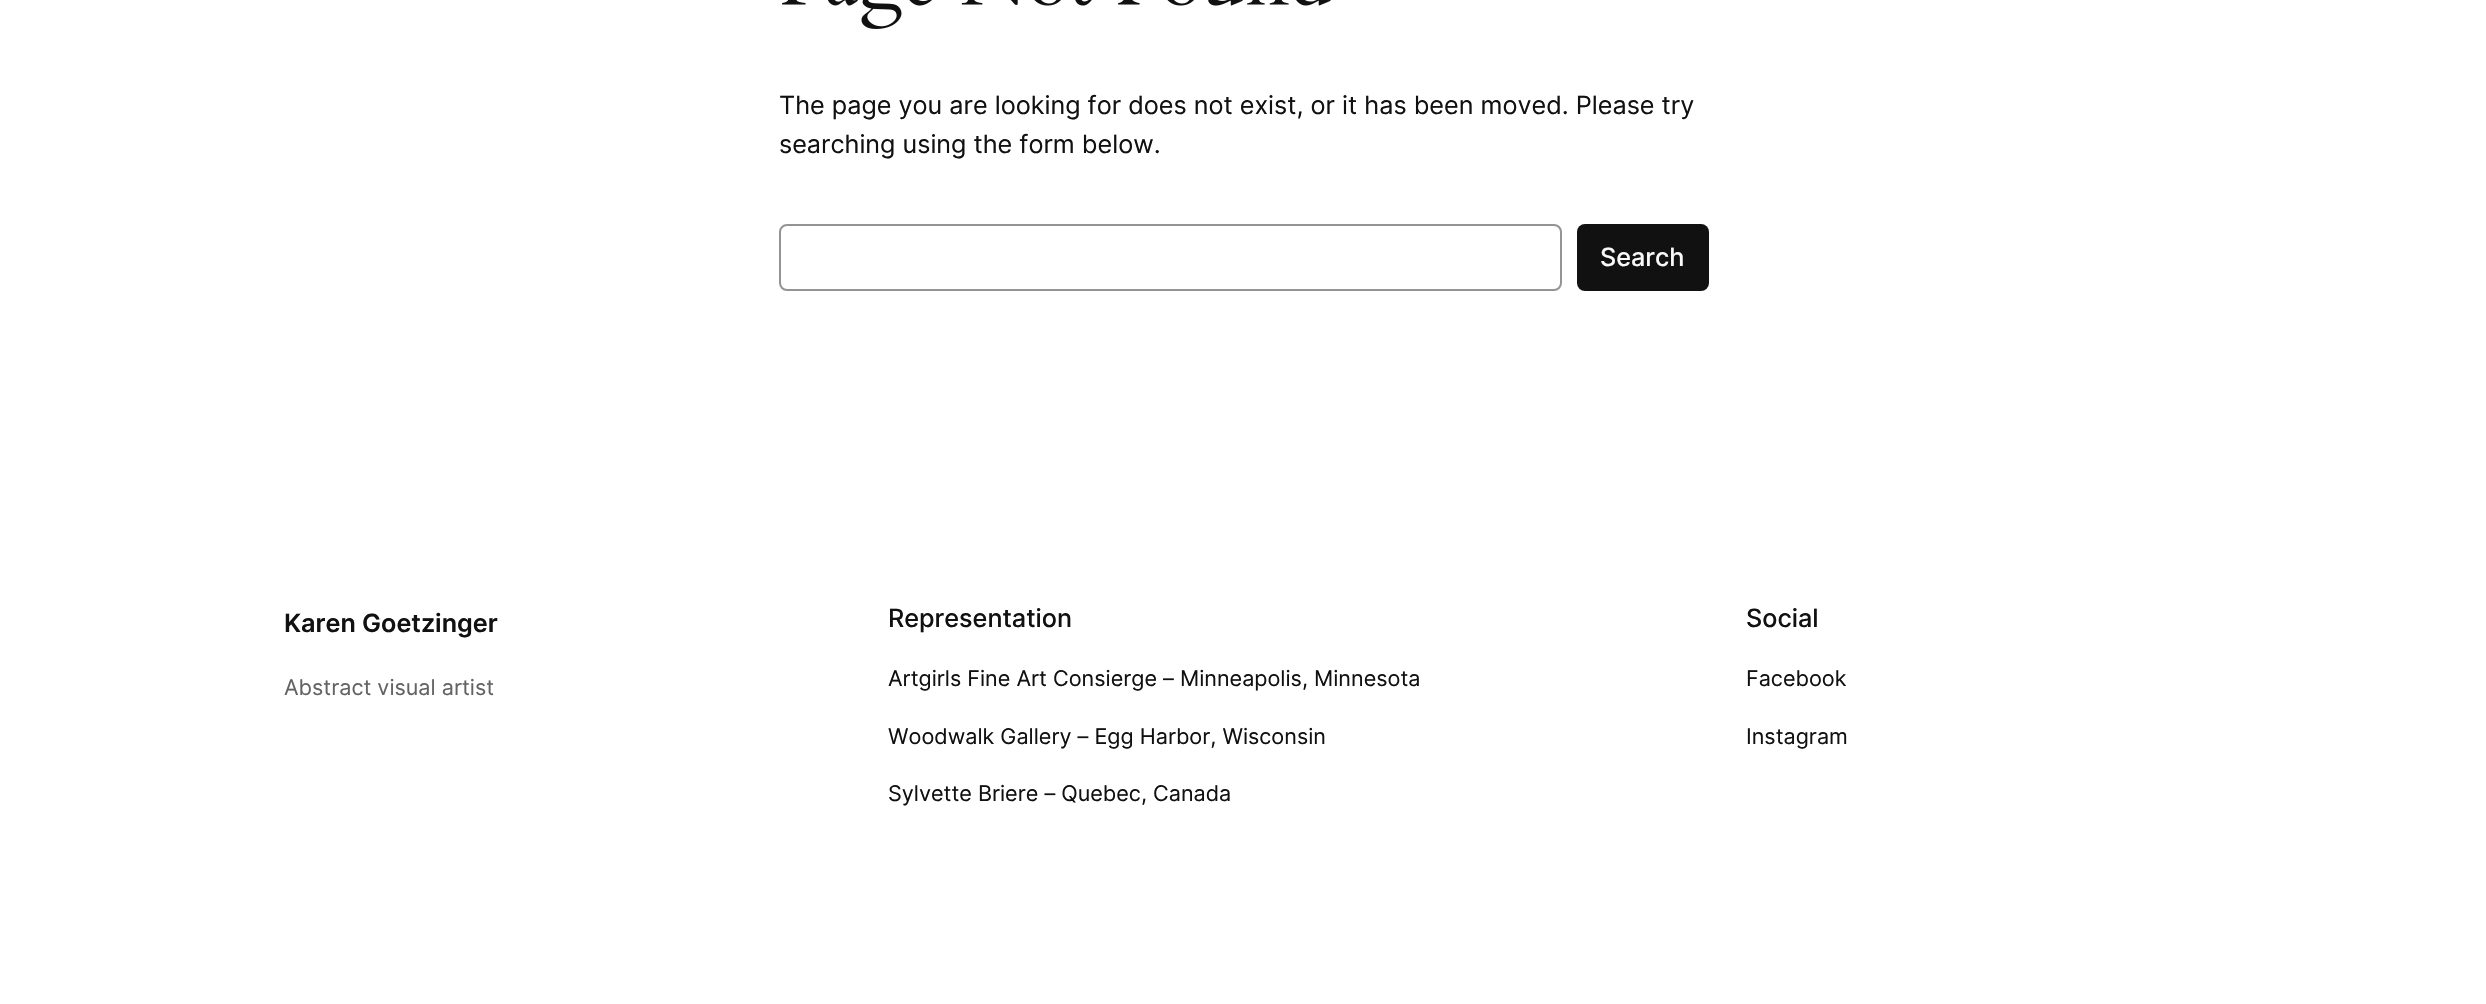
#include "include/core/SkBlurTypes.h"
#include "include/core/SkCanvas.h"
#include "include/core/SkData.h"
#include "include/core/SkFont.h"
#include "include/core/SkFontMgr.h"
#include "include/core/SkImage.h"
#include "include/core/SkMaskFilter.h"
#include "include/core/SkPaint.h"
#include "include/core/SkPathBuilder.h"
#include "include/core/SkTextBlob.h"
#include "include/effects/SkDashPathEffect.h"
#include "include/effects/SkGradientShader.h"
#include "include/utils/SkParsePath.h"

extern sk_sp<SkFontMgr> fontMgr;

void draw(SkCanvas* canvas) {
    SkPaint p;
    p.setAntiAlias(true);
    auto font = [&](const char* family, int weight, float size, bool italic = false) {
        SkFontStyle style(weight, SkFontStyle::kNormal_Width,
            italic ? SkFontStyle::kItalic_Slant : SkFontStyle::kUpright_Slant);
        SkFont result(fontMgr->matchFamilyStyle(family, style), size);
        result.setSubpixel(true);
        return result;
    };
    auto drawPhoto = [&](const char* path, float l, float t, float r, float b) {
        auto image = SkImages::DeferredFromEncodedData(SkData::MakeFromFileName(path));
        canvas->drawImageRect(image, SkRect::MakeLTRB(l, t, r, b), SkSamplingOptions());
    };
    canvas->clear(0xFFFFFFFF);
    drawPhoto("media/1.png", 782, 0, 1331, 29);
    auto font1 = font("Inter", 400, 25.2f);
    p.setColor(0xFF111111);
    canvas->drawString("The page you are looking for does not exist, or it has been moved. Please try", 779, 114, font1, p);
    canvas->drawString("searching using the form below.", 779, 153, font1, p);
    p.setStyle(SkPaint::kStroke_Style);
    p.setStrokeWidth(2);
    p.setColor(0xFF949494);
    canvas->drawRoundRect(SkRect::MakeLTRB(780, 225, 1561, 290), 7, 7, p);
    p.setStyle(SkPaint::kFill_Style);
    p.setColor(0xFF111111);
    canvas->drawRoundRect(SkRect::MakeLTRB(1577, 224, 1709, 291), 8, 8, p);
    auto font2 = font("Inter", 500, 25.2f);
    p.setColor(0xFFF9F9F9);
    canvas->drawString("Search", 1600, 266, font2, p);
    auto font3 = font("Inter", 600, 25.2f);
    p.setColor(0xFF111111);
    canvas->drawString("Karen Goetzinger", 284, 632, font3, p);
    auto font4 = font("Inter", 400, 21.6f);
    p.setColor(0xFF636363);
    canvas->drawString("Abstract visual artist", 284, 695, font4, p);
    p.setColor(0xFF111111);
    canvas->drawString("Representation", 888, 627, font2, p);
    {
        const struct { const char* s; float x, y; } items[] = {
            {"Artgirls Fine Art Consierge – Minneapolis, Minnesota", 888, 686},
            {"Woodwalk Gallery – Egg Harbor, Wisconsin", 888, 744},
            {"Sylvette Briere – Quebec, Canada", 888, 801},
        };
        for (auto [s, x, y] : items) {
            canvas->drawString(s, x, y, font4, p);
        }
    }
    canvas->drawString("Social", 1746, 627, font2, p);
    canvas->drawString("Facebook", 1746, 686, font4, p);
    canvas->drawString("Instagram", 1746, 744, font4, p);
}
